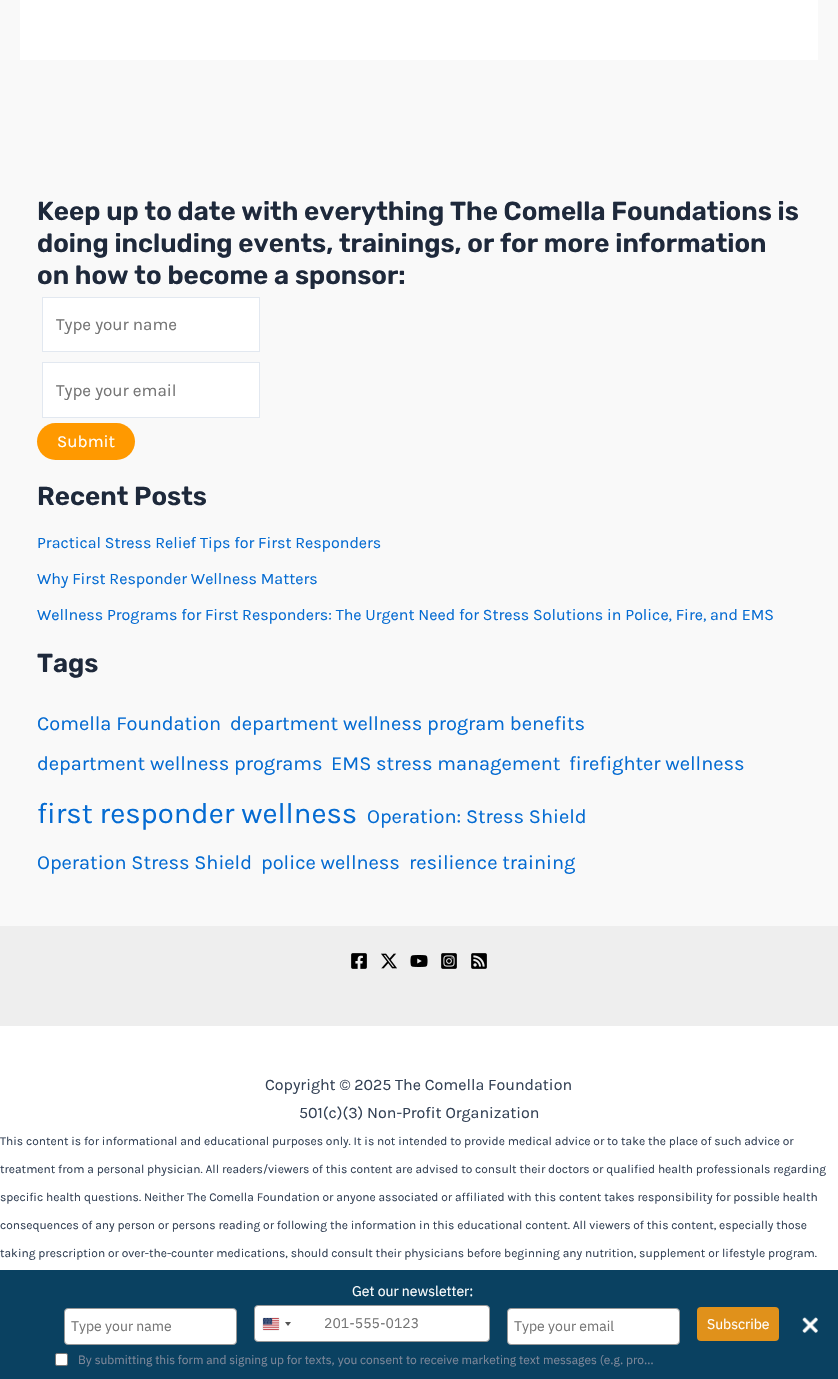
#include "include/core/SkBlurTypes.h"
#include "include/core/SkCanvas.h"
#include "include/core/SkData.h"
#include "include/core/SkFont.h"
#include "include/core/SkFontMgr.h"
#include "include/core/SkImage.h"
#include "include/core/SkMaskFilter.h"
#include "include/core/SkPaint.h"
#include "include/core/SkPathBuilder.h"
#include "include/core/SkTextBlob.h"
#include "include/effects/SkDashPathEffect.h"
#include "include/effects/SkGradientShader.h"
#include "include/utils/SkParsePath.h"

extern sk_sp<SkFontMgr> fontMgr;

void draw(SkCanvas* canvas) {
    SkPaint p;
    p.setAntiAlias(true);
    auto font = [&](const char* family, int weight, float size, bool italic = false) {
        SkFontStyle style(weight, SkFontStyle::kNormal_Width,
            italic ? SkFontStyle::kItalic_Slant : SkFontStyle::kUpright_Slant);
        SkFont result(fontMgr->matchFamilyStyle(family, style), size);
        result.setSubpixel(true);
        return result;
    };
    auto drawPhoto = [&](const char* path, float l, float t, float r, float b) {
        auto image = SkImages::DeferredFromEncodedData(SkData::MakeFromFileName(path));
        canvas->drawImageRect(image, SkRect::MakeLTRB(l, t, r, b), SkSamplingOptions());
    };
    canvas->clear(0xFFF9F9F9);
    p.setColor(0xFFFFFFFF);
    canvas->drawRect(SkRect::MakeLTRB(20, 0, 818, 60), p);
    auto font1 = font("Rubik", 600, 26);
    p.setColor(0xFF1E293B);
    {
        const struct { const char* s; float x, y; } items[] = {
            {"Keep up to date with everything The Comella Foundations is", 37, 220},
            {"doing including events, trainings, or for more information", 37, 252},
            {"on how to become a sponsor:", 37, 284},
        };
        for (auto [s, x, y] : items) {
            canvas->drawString(s, x, y, font1, p);
        }
    }
    p.setColor(0xFFFFFFFF);
    canvas->drawRect(SkRect::MakeLTRB(42.5f, 297.5f, 259.5f, 351.5f), p);
    p.setStyle(SkPaint::kStroke_Style);
    p.setStrokeWidth(1);
    p.setColor(0xFFE2E8F0);
    canvas->drawRect(SkRect::MakeLTRB(42.5f, 297.5f, 259.5f, 351.5f), p);
    canvas->save();
    canvas->clipRect(SkRect::MakeLTRB(56, 314, 246, 334));
    auto font2 = font("Karla", 400, 17);
    p.setStyle(SkPaint::kFill_Style);
    p.setColor(0xFF757575);
    canvas->drawString("Type your name", 56, 330, font2, p);
    canvas->restore();
    p.setColor(0xFFFFFFFF);
    canvas->drawRect(SkRect::MakeLTRB(42.5f, 362.5f, 259.5f, 417.5f), p);
    p.setStyle(SkPaint::kStroke_Style);
    p.setColor(0xFFE2E8F0);
    canvas->drawRect(SkRect::MakeLTRB(42.5f, 362.5f, 259.5f, 417.5f), p);
    canvas->save();
    canvas->clipRect(SkRect::MakeLTRB(56, 380, 246, 400));
    p.setStyle(SkPaint::kFill_Style);
    p.setColor(0xFF757575);
    canvas->drawString("Type your email", 56, 396, font2, p);
    canvas->restore();
    p.setColor(0xFFFF9900);
    canvas->drawRoundRect(SkRect::MakeLTRB(37, 423, 135, 460), 18.5f, 18.5f, p);
    p.setColor(0xFFFFFFFF);
    canvas->drawString("Submit", 57, 447, font2, p);
    p.setColor(0xFF1E293B);
    canvas->drawString("Recent Posts", 37, 505, font1, p);
    auto font3 = font("Karla", 400, 16);
    p.setColor(0xFF046BD2);
    {
        const struct { const char* s; float x, y; } items[] = {
            {"Practical Stress Relief Tips for First Responders", 37, 548},
            {"Why First Responder Wellness Matters", 37, 584},
            {"Wellness Programs for First Responders: The Urgent Need for Stress Solutions in Police, Fire, and EMS", 37, 620},
        };
        for (auto [s, x, y] : items) {
            canvas->drawString(s, x, y, font3, p);
        }
    }
    p.setColor(0xFF1E293B);
    canvas->drawString("Tags", 37, 672, font1, p);
    auto font4 = font("Karla", 400, 20);
    p.setColor(0xFF046BD2);
    {
        const struct { const char* s; float x, y; } items[] = {
            {"Comella Foundation", 37, 730},
            {"department wellness program benefits", 230, 730},
            {"department wellness programs", 37, 770},
            {"EMS stress management", 331, 770},
            {"firefighter wellness", 569, 770},
        };
        for (auto [s, x, y] : items) {
            canvas->drawString(s, x, y, font4, p);
        }
    }
    auto font5 = font("Karla", 400, 29.25f);
    canvas->drawString("first responder wellness", 37, 823, font5, p);
    {
        const struct { const char* s; float x, y; } items[] = {
            {"Operation: Stress Shield", 367, 823},
            {"Operation Stress Shield", 37, 869},
            {"police wellness", 261, 869},
            {"resilience training", 409, 869},
        };
        for (auto [s, x, y] : items) {
            canvas->drawString(s, x, y, font4, p);
        }
    }
    p.setColor(0xFFEEEEEE);
    canvas->drawRect(SkRect::MakeLTRB(0, 926, 838, 1026), p);
    drawPhoto("media/1.png", 351, 953, 367, 969);
    drawPhoto("media/2.png", 381, 953, 397, 969);
    drawPhoto("media/3.png", 410, 955, 428, 967);
    drawPhoto("media/4.png", 441, 953, 457, 969);
    drawPhoto("media/5.png", 471, 953, 487, 969);
    p.setColor(0xFFFFFFFF);
    canvas->drawRect(SkRect::MakeLTRB(0, 1026, 838, 1270), p);
    p.setColor(0xFF334155);
    canvas->drawString("Copyright © 2025 The Comella Foundation", 265, 1090, font3, p);
    canvas->drawString("501(c)(3) Non-Profit Organization", 299, 1118, font3, p);
    auto font6 = font("Karla", 400, 12);
    {
        const struct { const char* s; float x, y; } items[] = {
            {"This content is for informational and educational purposes only. It is not intended to provide medical advice or to take the place of such advice or", 0, 1145},
            {"treatment from a personal physician. All readers/viewers of this content are advised to consult their doctors or qualified health professionals regarding", 0, 1173},
            {"specific health questions. Neither The Comella Foundation or anyone associated or affiliated with this content takes responsibility for possible health", 0, 1201},
            {"consequences of any person or persons reading or following the information in this educational content. All viewers of this content, especially those", 0, 1229},
            {"taking prescription or over-the-counter medications, should consult their physicians before beginning any nutrition, supplement or lifestyle program.", 0, 1257},
        };
        for (auto [s, x, y] : items) {
            canvas->drawString(s, x, y, font6, p);
        }
    }
    p.setColor(0xFF0A4161);
    canvas->drawRect(SkRect::MakeLTRB(0, 1270, 838, 1379), p);
    auto font7 = font("IBM Plex Sans", 400, 14);
    p.setColor(0xFFFFFFFF);
    canvas->drawString("Get our newsletter:", 352, 1296, font7, p);
    canvas->drawRoundRect(SkRect::MakeLTRB(64.5f, 1308.5f, 236.5f, 1344.5f), 3.5f, 3.5f, p);
    p.setStyle(SkPaint::kStroke_Style);
    p.setColor(0xFF979797);
    canvas->drawRoundRect(SkRect::MakeLTRB(64.5f, 1308.5f, 236.5f, 1344.5f), 3.5f, 3.5f, p);
    p.setStyle(SkPaint::kFill_Style);
    p.setColor(0xFF757575);
    canvas->drawString("Type your name", 71, 1331, font7, p);
    p.setColor(0xFFFFFFFF);
    canvas->drawRoundRect(SkRect::MakeLTRB(254.5f, 1305.5f, 489.5f, 1341.5f), 3.5f, 3.5f, p);
    p.setStyle(SkPaint::kStroke_Style);
    p.setColor(0xFF979797);
    canvas->drawRoundRect(SkRect::MakeLTRB(254.5f, 1305.5f, 489.5f, 1341.5f), 3.5f, 3.5f, p);
    p.setStyle(SkPaint::kFill_Style);
    p.setColor(0xFF888888);
    p.setMaskFilter(SkMaskFilter::MakeBlur(kNormal_SkBlurStyle, 0.5f));
    canvas->drawRoundRect(SkRect::MakeLTRB(263, 1318, 279, 1330), 1, 1, p);
    p.setMaskFilter(nullptr);
    drawPhoto("media/6.png", 263, 1318, 279, 1330);
    p.setColor(0xFF555555);
    canvas->drawPath(SkPathBuilder().moveTo(285, 1322).lineTo(291, 1322).lineTo(288, 1326).close().detach(), p);
    p.setColor(0xFF757575);
    canvas->drawString("201-555-0123", 324, 1328, font7, p);
    p.setColor(0xFFFFFFFF);
    canvas->drawRoundRect(SkRect::MakeLTRB(507.5f, 1308.5f, 679.5f, 1344.5f), 3.5f, 3.5f, p);
    p.setStyle(SkPaint::kStroke_Style);
    p.setColor(0xFF979797);
    canvas->drawRoundRect(SkRect::MakeLTRB(507.5f, 1308.5f, 679.5f, 1344.5f), 3.5f, 3.5f, p);
    p.setStyle(SkPaint::kFill_Style);
    p.setColor(0xFF757575);
    canvas->drawString("Type your email", 514, 1331, font7, p);
    p.setColor(0xFFE0911B);
    canvas->drawRoundRect(SkRect::MakeLTRB(697, 1307, 779, 1341), 4, 4, p);
    p.setColor(0xFFFFFFFF);
    canvas->drawString("Subscribe", 707, 1329, font7, p);
    canvas->drawRoundRect(SkRect::MakeLTRB(55.5f, 1353.5f, 67.5f, 1365.5f), 1.5f, 1.5f, p);
    p.setStyle(SkPaint::kStroke_Style);
    p.setColor(0xFF767676);
    canvas->drawRoundRect(SkRect::MakeLTRB(55.5f, 1353.5f, 67.5f, 1365.5f), 1.5f, 1.5f, p);
    auto font8 = font("IBM Plex Sans", 400, 12);
    p.setStyle(SkPaint::kFill_Style);
    p.setColor(0xFF7D8799);
    canvas->drawString("By submitting this form and signing up for texts, you consent to receive marketing text messages (e.g. pro…", 78, 1364, font8, p);
    drawPhoto("media/7.png", 802, 1317, 818, 1333);
}
